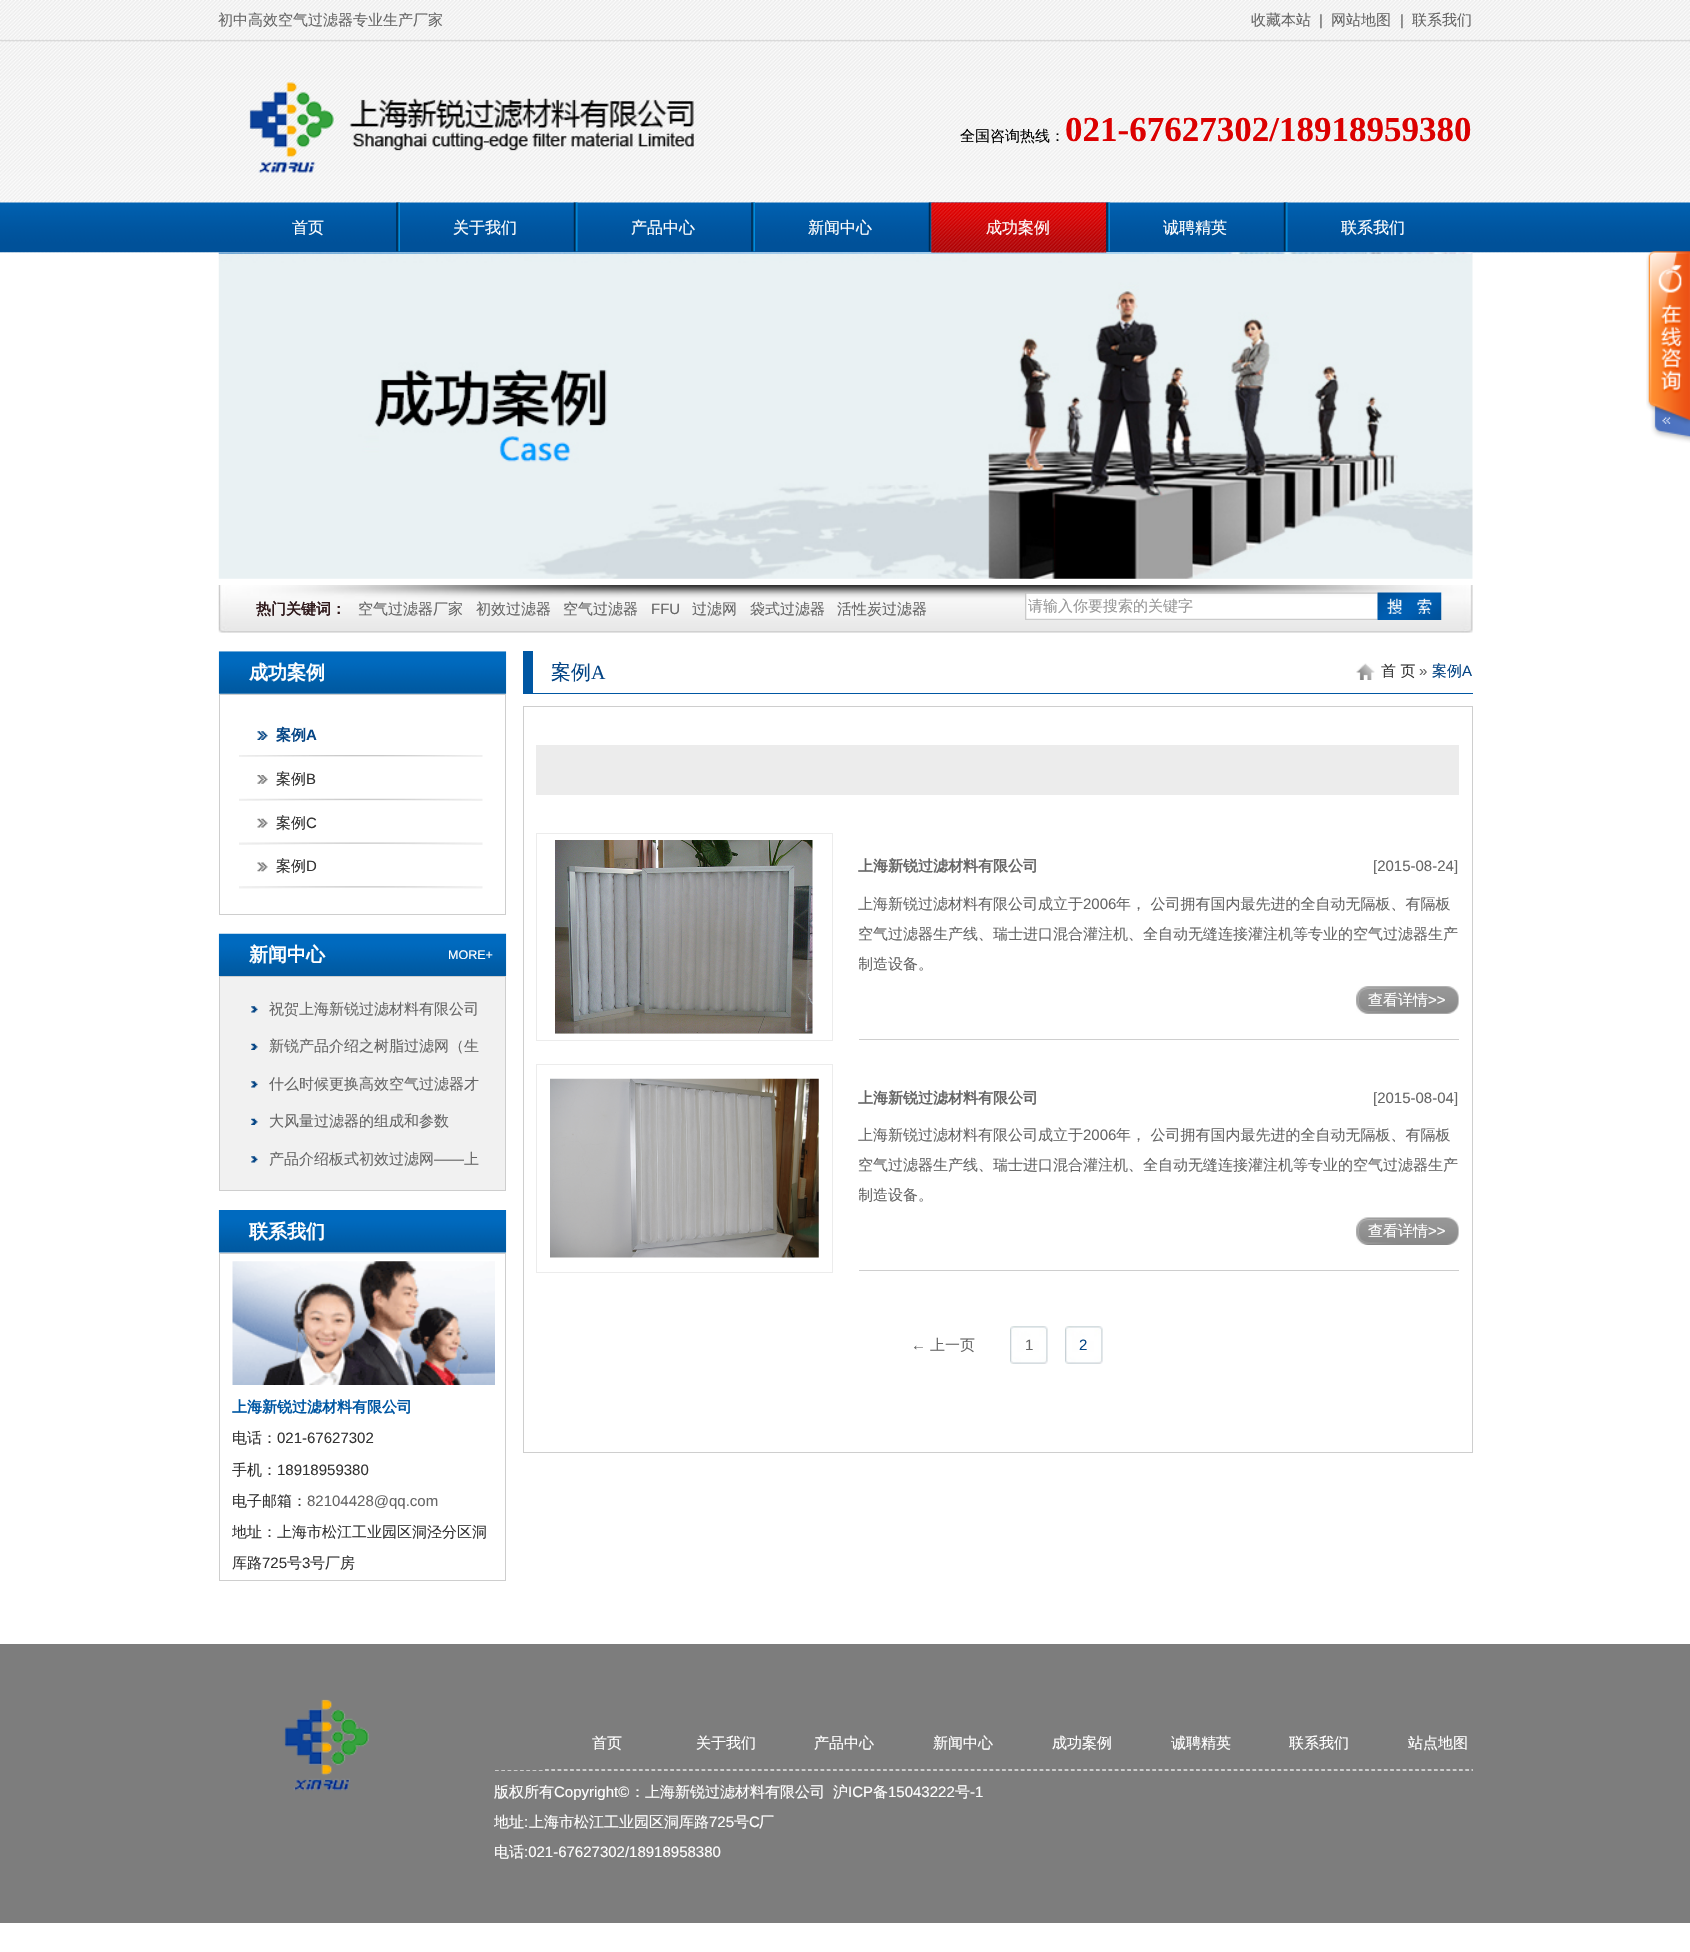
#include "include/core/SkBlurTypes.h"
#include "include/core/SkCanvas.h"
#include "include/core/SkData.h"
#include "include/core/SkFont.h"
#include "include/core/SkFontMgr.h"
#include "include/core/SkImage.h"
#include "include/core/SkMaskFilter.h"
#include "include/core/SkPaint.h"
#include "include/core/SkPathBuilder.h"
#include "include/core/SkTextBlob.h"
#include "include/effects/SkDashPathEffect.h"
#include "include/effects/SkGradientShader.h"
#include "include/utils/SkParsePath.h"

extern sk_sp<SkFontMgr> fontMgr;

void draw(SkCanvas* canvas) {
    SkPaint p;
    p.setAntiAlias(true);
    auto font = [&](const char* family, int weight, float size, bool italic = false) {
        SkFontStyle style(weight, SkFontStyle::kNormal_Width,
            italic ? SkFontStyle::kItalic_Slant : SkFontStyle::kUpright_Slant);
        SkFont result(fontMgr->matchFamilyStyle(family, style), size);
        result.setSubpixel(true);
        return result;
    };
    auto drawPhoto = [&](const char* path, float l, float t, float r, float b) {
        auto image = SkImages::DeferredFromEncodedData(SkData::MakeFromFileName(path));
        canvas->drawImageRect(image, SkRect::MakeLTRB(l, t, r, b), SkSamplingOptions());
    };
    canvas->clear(0xFFFFFFFF);
    drawPhoto("media/1.png", 0, 0, 1690, 253);
    auto font1 = font("WenQuanYi Zen Hei", 500, 15);
    p.setColor(0xFF666666);
    canvas->drawString("初中高效空气过滤器专业生产厂家", 218, 25, font1, p);
    canvas->drawString("收藏本站", 1251, 25, font1, p);
    auto font2 = font("Liberation Sans", 400, 15);
    canvas->drawString("|", 1319, 25, font2, p);
    canvas->drawString("网站地图", 1331, 25, font1, p);
    canvas->drawString("|", 1400, 25, font2, p);
    canvas->drawString("联系我们", 1412, 25, font1, p);
    drawPhoto("media/2.png", 249, 82, 694, 173);
    p.setColor(0xFF000000);
    canvas->drawString("全国咨询热线：", 960, 141, font1, p);
    auto font3 = font("Liberation Serif", 700, 35);
    p.setColor(0xFFDC0000);
    canvas->drawString("021-67627302/18918959380", 1065, 141, font3, p);
    auto font4 = font("WenQuanYi Zen Hei", 500, 16);
    p.setColor(0xFFFFFFFF);
    canvas->drawString("首页", 292, 233, font4, p);
    drawPhoto("media/3.png", 396, 202, 400, 252);
    canvas->drawString("关于我们", 453, 233, font4, p);
    drawPhoto("media/4.png", 573, 202, 578, 252);
    canvas->drawString("产品中心", 631, 233, font4, p);
    drawPhoto("media/5.png", 751, 202, 755, 252);
    canvas->drawString("新闻中心", 808, 233, font4, p);
    drawPhoto("media/6.png", 928, 202, 933, 252);
    drawPhoto("media/10.png", 218, 252, 1473, 579);
    drawPhoto("media/7.png", 931, 202, 1107, 253);
    canvas->drawString("成功案例", 986, 233, font4, p);
    drawPhoto("media/8.png", 1106, 202, 1110, 252);
    canvas->drawString("诚聘精英", 1163, 233, font4, p);
    drawPhoto("media/9.png", 1283, 202, 1288, 252);
    canvas->drawString("联系我们", 1341, 233, font4, p);
    drawPhoto("media/11.png", 1646, 251, 1690, 443);
    drawPhoto("media/12.png", 218, 585, 1473, 633);
    auto font5 = font("WenQuanYi Zen Hei", 700, 15);
    p.setColor(0xFF2E181A);
    canvas->drawString("热门关键词：", 256, 614, font5, p);
    p.setColor(0xFF666666);
    {
        const struct { const char* s; float x, y; } items[] = {
            {"空气过滤器厂家", 358, 614},
            {"初效过滤器", 476, 614},
            {"空气过滤器", 563, 614},
        };
        for (auto [s, x, y] : items) {
            canvas->drawString(s, x, y, font1, p);
        }
    }
    canvas->drawString("FFU", 651, 614, font2, p);
    {
        const struct { const char* s; float x, y; } items[] = {
            {"过滤网", 692, 614},
            {"袋式过滤器", 750, 614},
            {"活性炭过滤器", 837, 614},
        };
        for (auto [s, x, y] : items) {
            canvas->drawString(s, x, y, font1, p);
        }
    }
    drawPhoto("media/13.png", 1025, 592, 1378, 620);
    p.setColor(0xFF999999);
    canvas->drawString("请输入你要搜索的关键字", 1028, 611, font1, p);
    drawPhoto("media/14.png", 1377, 592, 1442, 620);
    drawPhoto("media/15.png", 218, 651, 507, 694);
    auto font6 = font("WenQuanYi Zen Hei", 700, 19);
    p.setColor(0xFFFFFFFF);
    canvas->drawString("成功案例", 249, 679, font6, p);
    p.setStyle(SkPaint::kStroke_Style);
    p.setStrokeWidth(1);
    p.setColor(0xFFCECECE);
    canvas->drawRect(SkRect::MakeLTRB(219.5f, 694.5f, 505.5f, 914.5f), p);
    drawPhoto("media/16.png", 239, 755, 483, 757);
    drawPhoto("media/17.png", 257, 731, 268, 740);
    p.setStyle(SkPaint::kFill_Style);
    p.setColor(0xFF054585);
    canvas->drawString("案例", 276, 740, font5, p);
    auto font7 = font("Liberation Sans", 700, 15);
    canvas->drawString("A", 306, 740, font7, p);
    drawPhoto("media/18.png", 239, 798, 483, 801);
    drawPhoto("media/19.png", 257, 775, 268, 784);
    p.setColor(0xFF333333);
    canvas->drawString("案例", 276, 784, font1, p);
    canvas->drawString("B", 306, 784, font2, p);
    drawPhoto("media/20.png", 239, 842, 483, 845);
    drawPhoto("media/21.png", 257, 818, 268, 828);
    canvas->drawString("案例", 276, 828, font1, p);
    canvas->drawString("C", 306, 828, font2, p);
    drawPhoto("media/22.png", 239, 886, 483, 889);
    drawPhoto("media/23.png", 257, 862, 268, 872);
    canvas->drawString("案例", 276, 871, font1, p);
    canvas->drawString("D", 306, 871, font2, p);
    drawPhoto("media/24.png", 218, 933, 507, 976);
    p.setColor(0xFFFFFFFF);
    canvas->drawString("新闻中心", 249, 961, font6, p);
    auto font8 = font("Liberation Sans", 400, 12.5f);
    canvas->drawString("MORE+", 448, 959, font8, p);
    p.setColor(0xFFF1F1F1);
    canvas->drawRect(SkRect::MakeLTRB(219.5f, 976.5f, 505.5f, 1190.5f), p);
    p.setStyle(SkPaint::kStroke_Style);
    p.setColor(0xFFCECECE);
    canvas->drawRect(SkRect::MakeLTRB(219.5f, 976.5f, 505.5f, 1190.5f), p);
    drawPhoto("media/25.png", 251, 1006, 258, 1013);
    p.setStyle(SkPaint::kFill_Style);
    p.setColor(0xFF666666);
    canvas->drawString("祝贺上海新锐过滤材料有限公司", 269, 1014, font1, p);
    drawPhoto("media/26.png", 251, 1043, 258, 1050);
    canvas->drawString("新锐产品介绍之树脂过滤网（生", 269, 1051, font1, p);
    drawPhoto("media/25.png", 251, 1081, 258, 1088);
    canvas->drawString("什么时候更换高效空气过滤器才", 269, 1089, font1, p);
    drawPhoto("media/26.png", 251, 1118, 258, 1125);
    canvas->drawString("大风量过滤器的组成和参数", 269, 1126, font1, p);
    drawPhoto("media/25.png", 251, 1156, 258, 1163);
    canvas->drawString("产品介绍板式初效过滤网", 269, 1164, font1, p);
    canvas->drawString("——", 434, 1164, font2, p);
    canvas->drawString("上", 464, 1164, font1, p);
    drawPhoto("media/27.png", 218, 1210, 507, 1253);
    p.setColor(0xFFFFFFFF);
    canvas->drawString("联系我们", 249, 1238, font6, p);
    p.setStyle(SkPaint::kStroke_Style);
    p.setColor(0xFFCECECE);
    canvas->drawRect(SkRect::MakeLTRB(219.5f, 1253.5f, 505.5f, 1580.5f), p);
    drawPhoto("media/28.png", 232, 1261, 495, 1385);
    p.setStyle(SkPaint::kFill_Style);
    p.setColor(0xFF0057A3);
    canvas->drawString("上海新锐过滤材料有限公司", 232, 1412, font5, p);
    p.setColor(0xFF333333);
    canvas->drawString("电话：", 232, 1443, font1, p);
    canvas->drawString("021-67627302", 277, 1443, font2, p);
    canvas->drawString("手机：", 232, 1475, font1, p);
    canvas->drawString("18918959380", 277, 1475, font2, p);
    canvas->drawString("电子邮箱：", 232, 1506, font1, p);
    p.setColor(0xFF666666);
    canvas->drawString("82104428@qq.com", 307, 1506, font2, p);
    p.setColor(0xFF333333);
    canvas->drawString("地址：上海市松江工业园区洞泾分区洞", 232, 1537, font1, p);
    canvas->drawString("厍路", 232, 1568, font1, p);
    canvas->drawString("725", 262, 1568, font2, p);
    canvas->drawString("号", 287, 1568, font1, p);
    canvas->drawString("3", 302, 1568, font2, p);
    canvas->drawString("号厂房", 310, 1568, font1, p);
    p.setColor(0xFF0057A3);
    canvas->drawRect(SkRect::MakeLTRB(533, 693, 1473, 694), p);
    canvas->drawRect(SkRect::MakeLTRB(523, 651, 533, 694), p);
    auto font9 = font("WenQuanYi Zen Hei", 500, 20);
    p.setColor(0xFF054585);
    canvas->drawString("案例", 551, 679, font9, p);
    auto font10 = font("Liberation Serif", 400, 20);
    canvas->drawString("A", 591, 679, font10, p);
    drawPhoto("media/29.png", 1356, 663, 1375, 680);
    p.setColor(0xFF333333);
    canvas->drawString("首 页", 1381, 676, font1, p);
    p.setColor(0xFF666666);
    canvas->drawString("»", 1419, 676, font2, p);
    p.setColor(0xFF054585);
    canvas->drawString("案例", 1432, 676, font1, p);
    canvas->drawString("A", 1462, 676, font2, p);
    p.setStyle(SkPaint::kStroke_Style);
    p.setColor(0xFFCECECE);
    canvas->drawRect(SkRect::MakeLTRB(523.5f, 706.5f, 1472.5f, 1452.5f), p);
    p.setStyle(SkPaint::kFill_Style);
    p.setColor(0xFFECECEC);
    canvas->drawRect(SkRect::MakeLTRB(536, 745, 1459, 795), p);
    p.setStyle(SkPaint::kStroke_Style);
    canvas->drawRect(SkRect::MakeLTRB(536.5f, 833.5f, 832.5f, 1040.5f), p);
    drawPhoto("media/30.png", 555, 840, 813, 1034);
    p.setStyle(SkPaint::kFill_Style);
    p.setColor(0xFFCECECE);
    canvas->drawRect(SkRect::MakeLTRB(859, 1039, 1459, 1040), p);
    p.setColor(0xFF666666);
    canvas->drawString("上海新锐过滤材料有限公司", 858, 871, font5, p);
    canvas->drawString("[2015-08-24]", 1373, 871, font2, p);
    canvas->drawString("上海新锐过滤材料有限公司成立于", 858, 909, font1, p);
    canvas->drawString("2006", 1083, 909, font2, p);
    canvas->drawString("年， 公司拥有国内最先进的全自动无隔板、有隔板", 1116, 909, font1, p);
    canvas->drawString("空气过滤器生产线、瑞士进口混合灌注机、全自动无缝连接灌注机等专业的空气过滤器生产", 858, 939, font1, p);
    canvas->save();
    canvas->clipRect(SkRect::MakeLTRB(859, 889, 1459, 986));
    canvas->drawString("制造设备。", 858, 969, font1, p);
    canvas->restore();
    drawPhoto("media/31.png", 1356, 986, 1459, 1014);
    p.setColor(0xFFFFFFFF);
    canvas->drawString("查看详情", 1368, 1005, font1, p);
    canvas->drawString(">>", 1428, 1005, font2, p);
    p.setStyle(SkPaint::kStroke_Style);
    p.setColor(0xFFECECEC);
    canvas->drawRect(SkRect::MakeLTRB(536.5f, 1064.5f, 832.5f, 1272.5f), p);
    drawPhoto("media/32.png", 550, 1078, 819, 1258);
    p.setStyle(SkPaint::kFill_Style);
    p.setColor(0xFFCECECE);
    canvas->drawRect(SkRect::MakeLTRB(859, 1270, 1459, 1271), p);
    p.setColor(0xFF666666);
    canvas->drawString("上海新锐过滤材料有限公司", 858, 1103, font5, p);
    canvas->drawString("[2015-08-04]", 1373, 1103, font2, p);
    canvas->drawString("上海新锐过滤材料有限公司成立于", 858, 1140, font1, p);
    canvas->drawString("2006", 1083, 1140, font2, p);
    canvas->drawString("年， 公司拥有国内最先进的全自动无隔板、有隔板", 1116, 1140, font1, p);
    canvas->drawString("空气过滤器生产线、瑞士进口混合灌注机、全自动无缝连接灌注机等专业的空气过滤器生产", 858, 1170, font1, p);
    canvas->save();
    canvas->clipRect(SkRect::MakeLTRB(859, 1120, 1459, 1218));
    canvas->drawString("制造设备。", 858, 1200, font1, p);
    canvas->restore();
    drawPhoto("media/33.png", 1356, 1217, 1459, 1245);
    p.setColor(0xFFFFFFFF);
    canvas->drawString("查看详情", 1368, 1236, font1, p);
    canvas->drawString(">>", 1428, 1236, font2, p);
    p.setColor(0xFF666666);
    canvas->drawString("←", 911, 1350, font2, p);
    canvas->drawString("上一页", 930, 1350, font1, p);
    drawPhoto("media/34.png", 1010, 1326, 1048, 1364);
    canvas->drawString("1", 1025, 1350, font2, p);
    drawPhoto("media/35.png", 1065, 1326, 1103, 1364);
    p.setColor(0xFF054585);
    canvas->drawString("2", 1079, 1350, font2, p);
    p.setColor(0xFF7D7D7D);
    canvas->drawRect(SkRect::MakeLTRB(0, 1644, 1690, 1923), p);
    drawPhoto("media/36.png", 284, 1699, 369, 1791);
    canvas->save();
    canvas->clipRect(SkRect::MakeLTRB(445, 1669, 1473, 1898));
    p.setStyle(SkPaint::kStroke_Style);
    p.setStrokeWidth(1.2f);
    p.setColor(0xFFCECECE);
    p.setPathEffect(SkDashPathEffect::Make({{3.75f, 2.51f}}, 0));
    canvas->drawPath(SkPathBuilder().moveTo(495, 1770.5f).lineTo(1495, 1770.5f).detach(), p);
    p.setPathEffect(nullptr);
    canvas->restore();
    canvas->save();
    canvas->clipRect(SkRect::MakeLTRB(495, 1694, 1473, 1770));
    p.setPathEffect(SkDashPathEffect::Make({{3.75f, 2.51f}}, 0));
    canvas->drawPath(SkPathBuilder().moveTo(545, 1769.5f).lineTo(1545, 1769.5f).detach(), p);
    p.setPathEffect(nullptr);
    canvas->restore();
    p.setStyle(SkPaint::kFill_Style);
    p.setColor(0xFFFFFFFF);
    {
        const struct { const char* s; float x, y; } items[] = {
            {"首页", 592, 1748},
            {"关于我们", 696, 1748},
            {"产品中心", 814, 1748},
            {"新闻中心", 933, 1748},
            {"成功案例", 1052, 1748},
            {"诚聘精英", 1171, 1748},
            {"联系我们", 1289, 1748},
            {"站点地图", 1408, 1748},
            {"版权所有", 494, 1797},
        };
        for (auto [s, x, y] : items) {
            canvas->drawString(s, x, y, font1, p);
        }
    }
    canvas->drawString("Copyright©", 554, 1797, font2, p);
    canvas->drawString("：上海新锐过滤材料有限公司", 630, 1797, font1, p);
    canvas->drawString("沪", 833, 1797, font1, p);
    canvas->drawString("ICP", 848, 1797, font2, p);
    canvas->drawString("备", 873, 1797, font1, p);
    canvas->drawString("15043222", 888, 1797, font2, p);
    canvas->drawString("号", 955, 1797, font1, p);
    canvas->drawString("-1", 970, 1797, font2, p);
    canvas->drawString("地址", 494, 1827, font1, p);
    canvas->drawString(":", 524, 1827, font2, p);
    canvas->drawString("上海市松江工业园区洞厍路", 529, 1827, font1, p);
    canvas->drawString("725", 709, 1827, font2, p);
    canvas->drawString("号", 734, 1827, font1, p);
    canvas->drawString("C", 749, 1827, font2, p);
    canvas->drawString("厂", 759, 1827, font1, p);
    canvas->drawString("电话", 494, 1857, font1, p);
    canvas->drawString(":021-67627302/18918958380", 524, 1857, font2, p);
}
